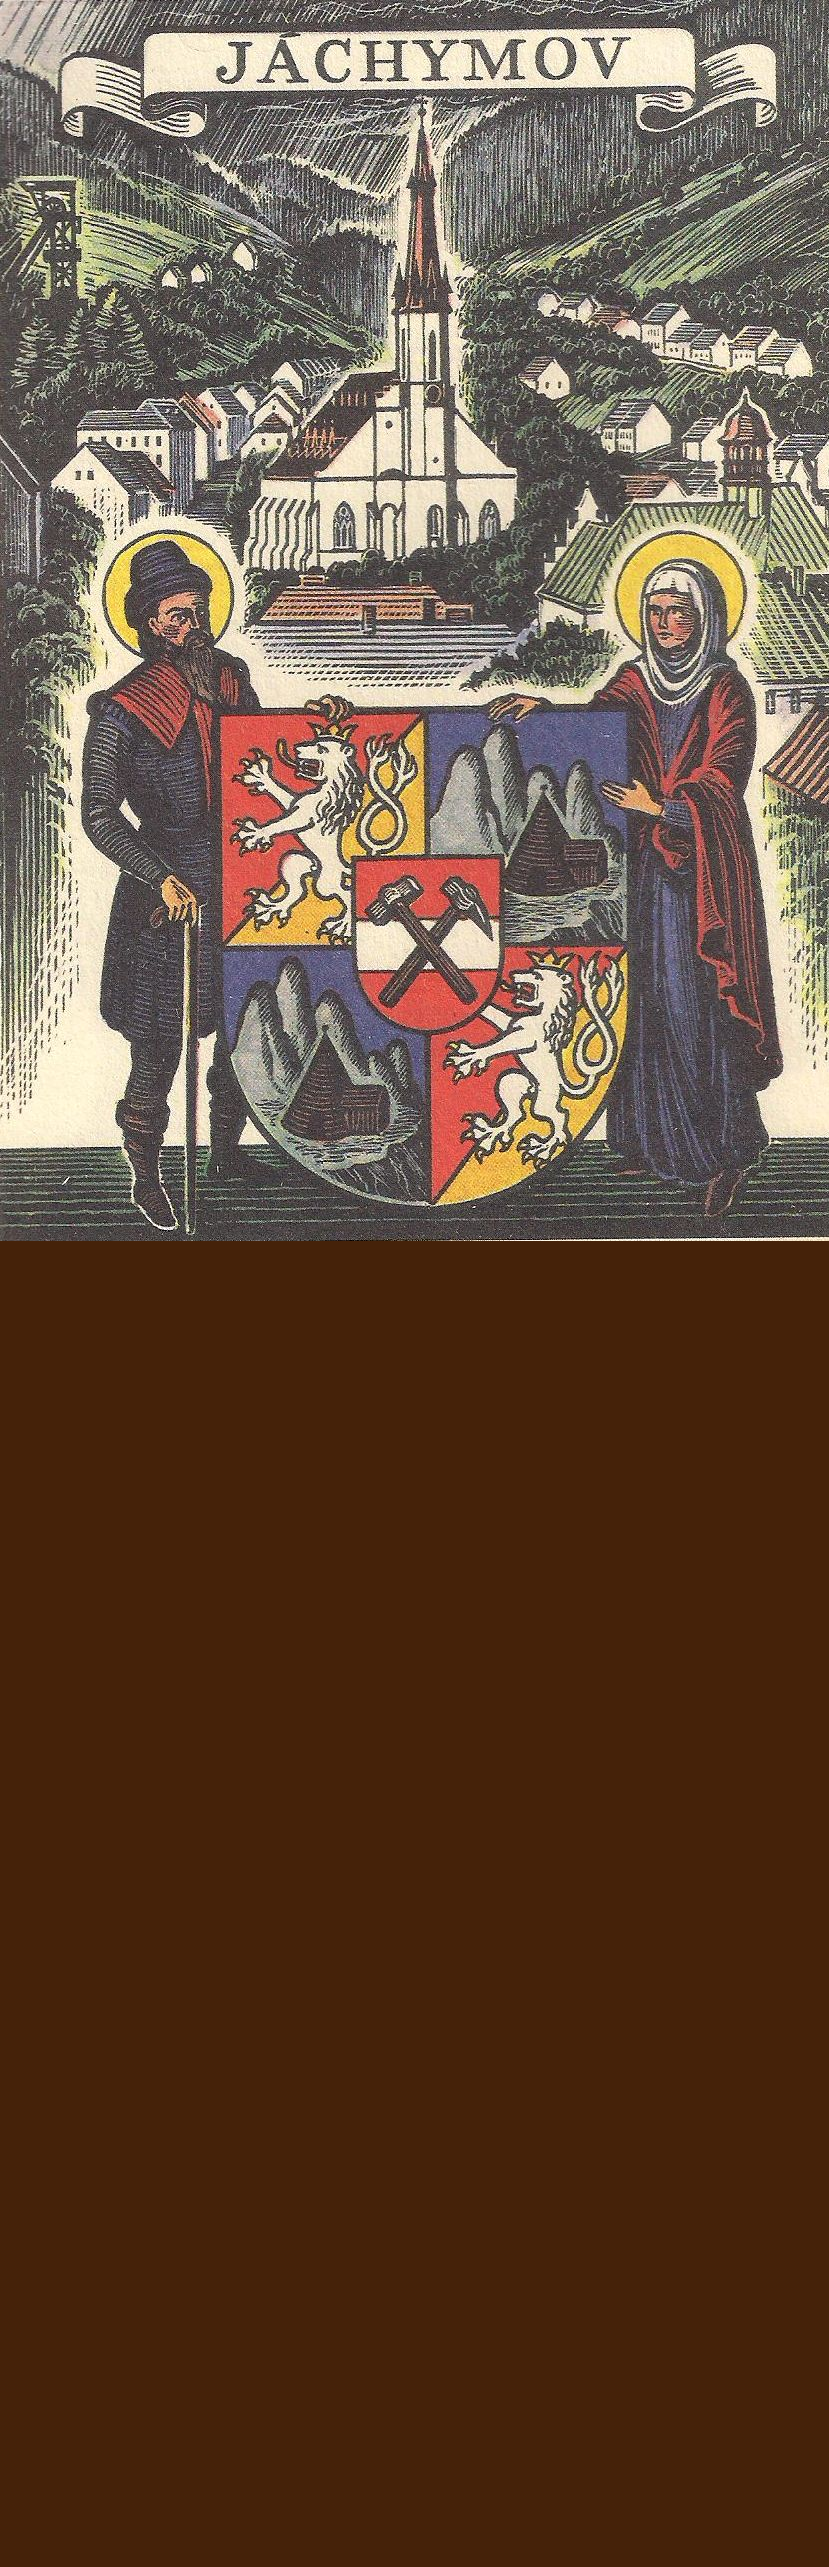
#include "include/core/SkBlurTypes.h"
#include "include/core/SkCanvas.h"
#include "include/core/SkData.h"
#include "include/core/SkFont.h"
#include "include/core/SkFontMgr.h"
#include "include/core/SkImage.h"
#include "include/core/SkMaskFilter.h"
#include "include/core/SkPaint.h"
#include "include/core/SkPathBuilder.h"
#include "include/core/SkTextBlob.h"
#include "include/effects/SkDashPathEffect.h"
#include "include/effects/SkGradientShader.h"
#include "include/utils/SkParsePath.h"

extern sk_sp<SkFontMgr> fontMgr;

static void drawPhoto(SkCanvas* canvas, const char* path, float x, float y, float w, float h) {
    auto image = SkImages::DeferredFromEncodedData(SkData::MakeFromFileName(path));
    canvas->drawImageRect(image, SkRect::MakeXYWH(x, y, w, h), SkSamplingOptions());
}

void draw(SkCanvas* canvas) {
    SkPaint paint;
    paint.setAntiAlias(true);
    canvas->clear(0xFF452209);
    drawPhoto(canvas, "assets/img1.png", 0, 0, 829, 1241);
}
